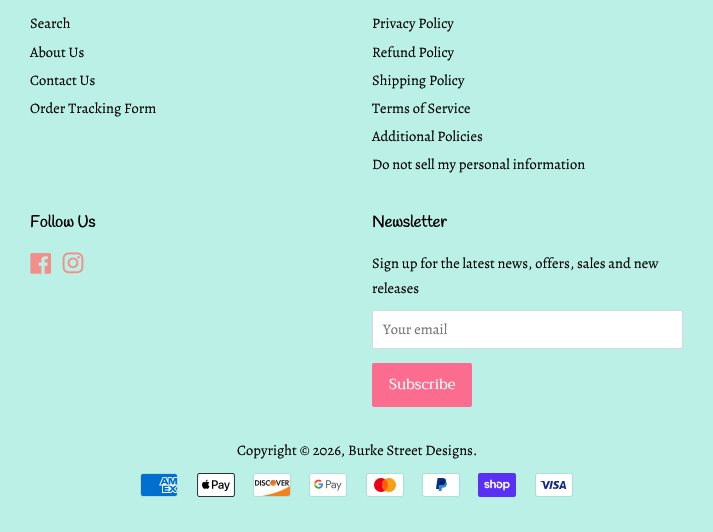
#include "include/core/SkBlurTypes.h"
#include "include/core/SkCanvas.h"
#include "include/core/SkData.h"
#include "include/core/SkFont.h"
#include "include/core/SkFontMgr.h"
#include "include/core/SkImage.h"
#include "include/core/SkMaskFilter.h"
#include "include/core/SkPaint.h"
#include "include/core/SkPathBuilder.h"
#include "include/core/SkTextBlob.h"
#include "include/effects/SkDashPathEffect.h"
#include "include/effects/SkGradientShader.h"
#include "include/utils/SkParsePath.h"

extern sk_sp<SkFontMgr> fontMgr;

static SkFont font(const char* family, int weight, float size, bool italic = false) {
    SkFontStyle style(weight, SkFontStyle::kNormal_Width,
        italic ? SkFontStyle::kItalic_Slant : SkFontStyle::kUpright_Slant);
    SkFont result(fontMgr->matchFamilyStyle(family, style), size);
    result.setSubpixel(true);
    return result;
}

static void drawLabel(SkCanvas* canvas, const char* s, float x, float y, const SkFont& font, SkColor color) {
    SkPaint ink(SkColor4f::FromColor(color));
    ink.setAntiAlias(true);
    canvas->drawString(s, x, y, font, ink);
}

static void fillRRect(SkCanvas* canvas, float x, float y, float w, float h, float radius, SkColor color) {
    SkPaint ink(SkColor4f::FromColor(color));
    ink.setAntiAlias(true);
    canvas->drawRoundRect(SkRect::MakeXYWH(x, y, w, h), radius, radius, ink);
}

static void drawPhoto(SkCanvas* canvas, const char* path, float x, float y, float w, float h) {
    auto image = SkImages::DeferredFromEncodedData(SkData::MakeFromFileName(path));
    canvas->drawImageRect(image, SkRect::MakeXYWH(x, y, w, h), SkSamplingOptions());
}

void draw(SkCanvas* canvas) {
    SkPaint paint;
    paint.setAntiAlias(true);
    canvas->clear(0xFFBAF0E5);
    SkFont font1 = font("Alegreya", 400, 14.5f);
    drawLabel(canvas, "Search", 30, 28, font1, 0xFF000000);
    drawLabel(canvas, "About Us", 30, 57, font1, 0xFF000000);
    drawLabel(canvas, "Contact Us", 30, 85, font1, 0xFF000000);
    drawLabel(canvas, "Order Tracking Form", 30, 113, font1, 0xFF000000);
    drawLabel(canvas, "Privacy Policy", 372, 28, font1, 0xFF000000);
    drawLabel(canvas, "Refund Policy", 372, 57, font1, 0xFF000000);
    drawLabel(canvas, "Shipping Policy", 372, 85, font1, 0xFF000000);
    drawLabel(canvas, "Terms of Service", 372, 113, font1, 0xFF000000);
    drawLabel(canvas, "Additional Policies", 372, 141, font1, 0xFF000000);
    drawLabel(canvas, "Do not sell my personal information", 372, 169, font1, 0xFF000000);
    SkFont font2 = font("Handlee", 700, 16);
    drawLabel(canvas, "Follow Us", 30, 227, font2, 0xFF000000);
    drawPhoto(canvas, "assets/img1.png", 30, 253, 21, 21);
    drawPhoto(canvas, "assets/img2.png", 62, 252, 22, 22);
    drawLabel(canvas, "Newsletter", 372, 227, font2, 0xFF000000);
    drawLabel(canvas, "Sign up for the latest news, offers, sales and new", 372, 268, font1, 0xFF000000);
    drawLabel(canvas, "releases", 372, 293, font1, 0xFF000000);
    fillRRect(canvas, 372, 310, 311, 39, 2, 0xFFFFFFFF);
    paint.setStroke(true);
    paint.setStrokeWidth(1);
    paint.setColor(0x26000000);
    canvas->drawRoundRect(SkRect::MakeXYWH(372.5f, 310.5f, 310, 38), 1.5f, 1.5f, paint);
    drawLabel(canvas, "Your email", 383, 334, font1, 0xFF757575);
    fillRRect(canvas, 372, 363, 100, 44, 2, 0xFFFB6C8F);
    SkFont font3 = font("Trirong", 400, 14.5f);
    drawLabel(canvas, "Subscribe", 389, 389, font3, 0xFFFFFFFF);
    drawLabel(canvas, "Copyright © 2026, Burke Street Designs.", 237, 455, font1, 0xFF000000);
    drawPhoto(canvas, "assets/img3.png", 140, 473, 38, 24);
    drawPhoto(canvas, "assets/img4.png", 197, 473, 38, 24);
    drawPhoto(canvas, "assets/img5.png", 253, 473, 38, 24);
    drawPhoto(canvas, "assets/img6.png", 309, 473, 38, 24);
    drawPhoto(canvas, "assets/img7.png", 366, 473, 38, 24);
    drawPhoto(canvas, "assets/img8.png", 422, 473, 38, 24);
    drawPhoto(canvas, "assets/img9.png", 478, 473, 38, 24);
    drawPhoto(canvas, "assets/img10.png", 535, 473, 38, 24);
}
